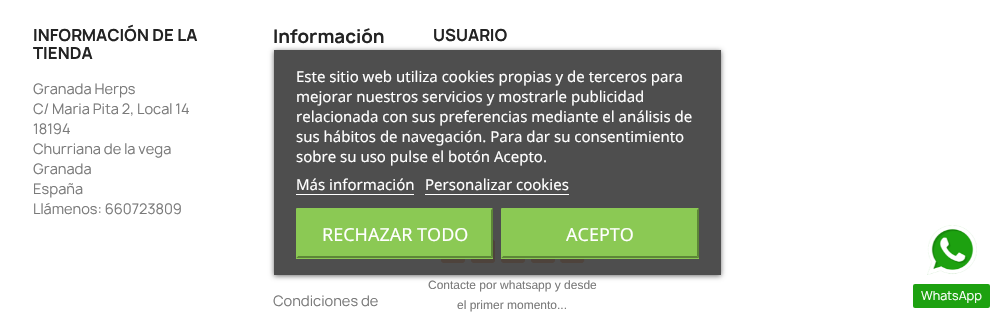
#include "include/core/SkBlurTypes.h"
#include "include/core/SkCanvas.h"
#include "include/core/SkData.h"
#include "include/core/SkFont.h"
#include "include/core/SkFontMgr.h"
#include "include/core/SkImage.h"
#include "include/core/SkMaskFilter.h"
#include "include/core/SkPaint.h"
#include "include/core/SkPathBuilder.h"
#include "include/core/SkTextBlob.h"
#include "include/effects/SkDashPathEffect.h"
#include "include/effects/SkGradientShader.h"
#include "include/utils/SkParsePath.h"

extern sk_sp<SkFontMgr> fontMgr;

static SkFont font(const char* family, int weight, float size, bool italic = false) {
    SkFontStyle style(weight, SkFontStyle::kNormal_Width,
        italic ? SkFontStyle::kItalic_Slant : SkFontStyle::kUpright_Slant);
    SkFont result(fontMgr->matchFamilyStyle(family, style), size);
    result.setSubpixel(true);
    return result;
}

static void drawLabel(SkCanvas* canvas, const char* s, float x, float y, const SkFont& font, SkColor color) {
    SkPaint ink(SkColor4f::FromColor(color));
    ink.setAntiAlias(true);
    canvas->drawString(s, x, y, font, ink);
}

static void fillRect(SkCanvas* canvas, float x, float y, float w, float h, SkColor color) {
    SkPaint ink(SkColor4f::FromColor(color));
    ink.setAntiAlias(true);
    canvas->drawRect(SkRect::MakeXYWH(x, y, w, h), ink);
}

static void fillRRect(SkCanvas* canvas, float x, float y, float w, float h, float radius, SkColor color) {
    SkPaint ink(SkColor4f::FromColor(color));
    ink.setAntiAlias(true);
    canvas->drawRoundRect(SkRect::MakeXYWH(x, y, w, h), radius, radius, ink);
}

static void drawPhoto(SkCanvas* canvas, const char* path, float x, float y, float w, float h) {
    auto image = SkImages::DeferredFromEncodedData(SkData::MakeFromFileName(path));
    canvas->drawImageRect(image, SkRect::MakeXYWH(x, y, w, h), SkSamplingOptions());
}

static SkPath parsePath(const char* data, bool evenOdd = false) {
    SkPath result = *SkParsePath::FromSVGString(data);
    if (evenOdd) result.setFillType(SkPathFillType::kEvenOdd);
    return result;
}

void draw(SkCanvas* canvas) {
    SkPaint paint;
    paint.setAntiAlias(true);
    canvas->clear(0xFFFFFFFF);
    SkFont font1 = font("Manrope", 700, 16);
    drawLabel(canvas, "INFORMACIÓN DE LA", 33, 41, font1, 0xFF232323);
    drawLabel(canvas, "TIENDA", 33, 59, font1, 0xFF232323);
    SkFont font2 = font("Manrope", 400, 14);
    drawLabel(canvas, "Granada Herps", 33, 94, font2, 0xFF7A7A7A);
    drawLabel(canvas, "C/ Maria Pita 2, Local 14", 33, 114, font2, 0xFF7A7A7A);
    drawLabel(canvas, "18194", 33, 134, font2, 0xFF7A7A7A);
    drawLabel(canvas, "Churriana de la vega", 33, 154, font2, 0xFF7A7A7A);
    drawLabel(canvas, "Granada", 33, 174, font2, 0xFF7A7A7A);
    drawLabel(canvas, "España", 33, 194, font2, 0xFF7A7A7A);
    drawLabel(canvas, "Llámenos: 660723809", 33, 214, font2, 0xFF7A7A7A);
    SkFont font3 = font("Manrope", 700, 18);
    drawLabel(canvas, "Información", 273, 43, font3, 0xFF232323);
    drawLabel(canvas, "Condiciones de", 273, 306, font2, 0xFF7A7A7A);
    drawLabel(canvas, "USUARIO", 433, 41, font1, 0xFF232323);
    drawPhoto(canvas, "assets/img1.png", 441, 239, 144, 24);
    canvas->save();
    canvas->clipPath(parsePath("M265 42H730V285H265ZM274 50H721V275H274Z", true), true);
    paint.setColor(0xFF707070);
    paint.setMaskFilter(SkMaskFilter::MakeBlur(kNormal_SkBlurStyle, 2.5f));
    canvas->drawRect(SkRect::MakeXYWH(274, 51, 447, 225), paint);
    paint.setMaskFilter(nullptr);
    canvas->restore();
    fillRect(canvas, 274, 50, 447, 225, 0xE63B3B3B);
    SkFont font4 = font("Noto Sans", 400, 15);
    drawLabel(canvas, "Este sitio web utiliza cookies propias y de terceros para", 296, 82, font4, 0xFFFFFFFF);
    drawLabel(canvas, "mejorar nuestros servicios y mostrarle publicidad", 296, 102, font4, 0xFFFFFFFF);
    drawLabel(canvas, "relacionada con sus preferencias mediante el análisis de", 296, 122, font4, 0xFFFFFFFF);
    drawLabel(canvas, "sus hábitos de navegación. Para dar su consentimiento", 296, 142, font4, 0xFFFFFFFF);
    drawLabel(canvas, "sobre su uso pulse el botón Acepto.", 296, 162, font4, 0xFFFFFFFF);
    drawLabel(canvas, "Más información", 296, 190, font4, 0xFFFFFFFF);
    fillRect(canvas, 296, 194, 118, 1, 0xFFFFFFFF);
    drawLabel(canvas, "Personalizar cookies", 425, 190, font4, 0xFFFFFFFF);
    fillRect(canvas, 425, 194, 144, 1, 0xFFFFFFFF);
    fillRect(canvas, 296, 209, 197, 50, 0xFF8BC954);
    paint.setColor(0xFF8BC954);
    canvas->drawPath(parsePath("M296 208H493L491 210H298Z"), paint);
    paint.setColor(0xFF5D8638);
    canvas->drawPath(parsePath("M493 208V258L491 256V210Z"), paint);
    canvas->drawPath(parsePath("M493 258H296L298 256H491Z"), paint);
    paint.setColor(0xFF8BC954);
    canvas->drawPath(parsePath("M296 258V208L298 210V256Z"), paint);
    SkFont font5 = font("Noto Sans", 400, 18);
    drawLabel(canvas, "RECHAZAR TODO", 322, 241, font5, 0xFFFFFFFF);
    fillRect(canvas, 501, 209, 198, 50, 0xFF8BC954);
    canvas->drawPath(parsePath("M501 208H699L697 210H503Z"), paint);
    paint.setColor(0xFF5D8638);
    canvas->drawPath(parsePath("M699 208V258L697 256V210Z"), paint);
    canvas->drawPath(parsePath("M699 258H501L503 256H697Z"), paint);
    paint.setColor(0xFF8BC954);
    canvas->drawPath(parsePath("M501 258V208L503 210V256Z"), paint);
    drawLabel(canvas, "ACEPTO", 566, 241, font5, 0xFFFFFFFF);
    SkFont font6 = font("Liberation Sans", 400, 12);
    drawLabel(canvas, "Contacte por whatsapp y desde", 428, 289, font6, 0xFF7A7A7A);
    drawLabel(canvas, "el primer momento...", 457, 309, font6, 0xFF7A7A7A);
    drawPhoto(canvas, "assets/img2.png", 927, 225, 50, 50);
    fillRRect(canvas, 913, 284, 77, 24, 2, 0xFF1DA110);
    SkFont font7 = font("Manrope", 400, 12);
    drawLabel(canvas, "WhatsApp", 921, 300, font7, 0xFFFFFFFF);
}
